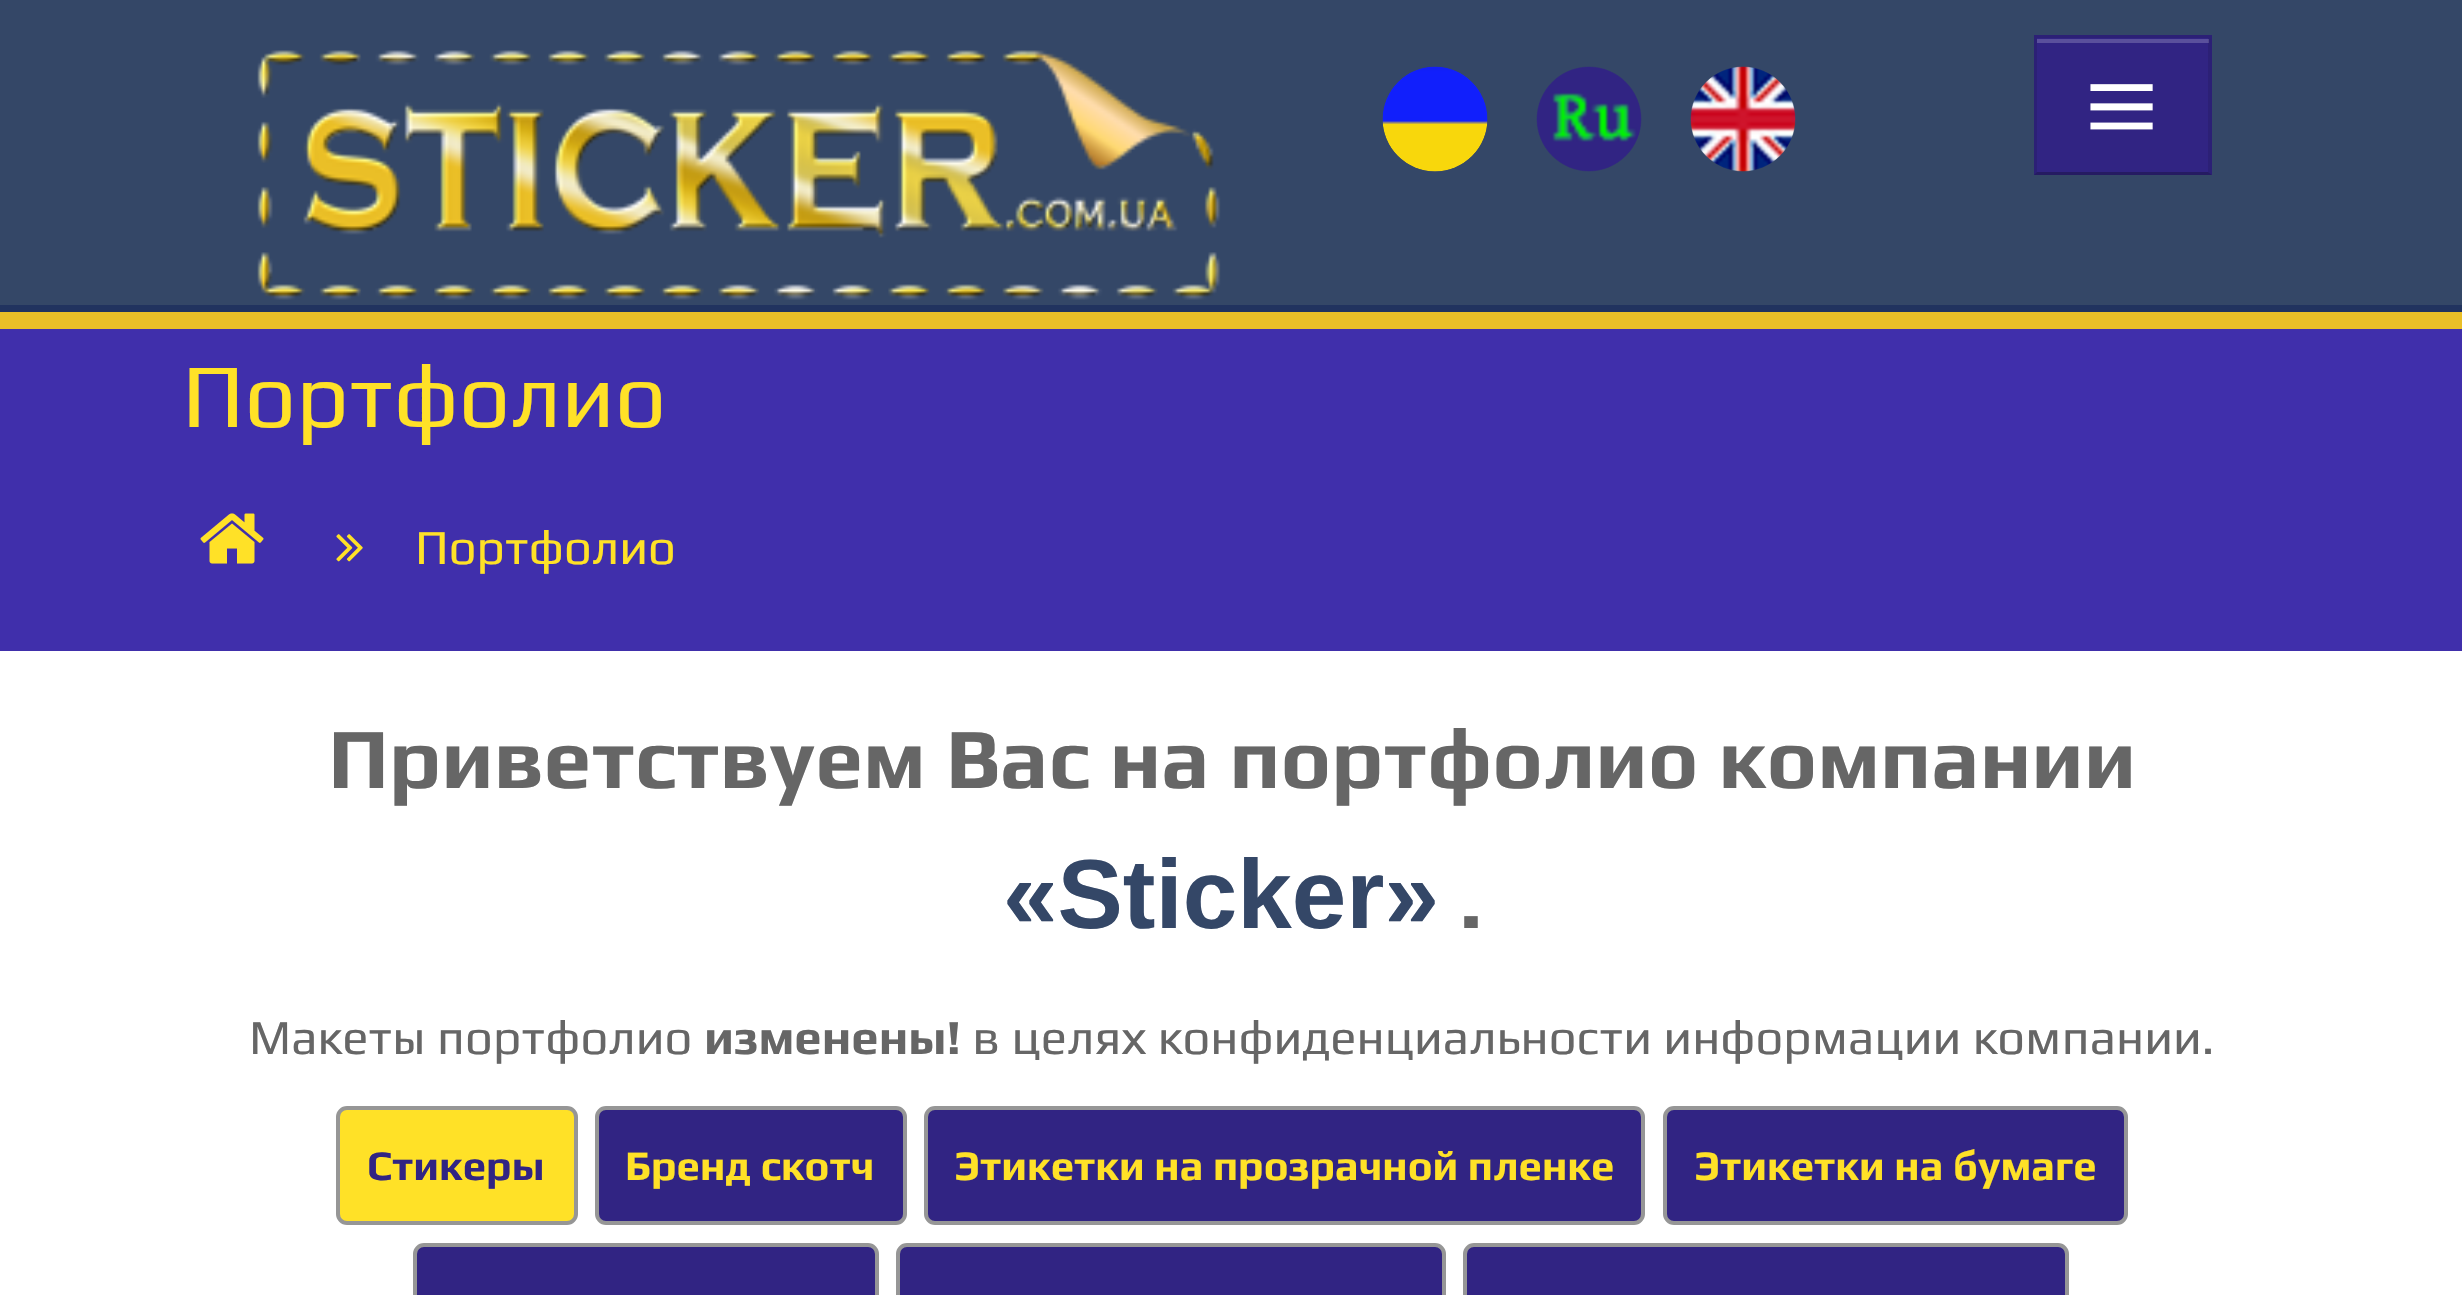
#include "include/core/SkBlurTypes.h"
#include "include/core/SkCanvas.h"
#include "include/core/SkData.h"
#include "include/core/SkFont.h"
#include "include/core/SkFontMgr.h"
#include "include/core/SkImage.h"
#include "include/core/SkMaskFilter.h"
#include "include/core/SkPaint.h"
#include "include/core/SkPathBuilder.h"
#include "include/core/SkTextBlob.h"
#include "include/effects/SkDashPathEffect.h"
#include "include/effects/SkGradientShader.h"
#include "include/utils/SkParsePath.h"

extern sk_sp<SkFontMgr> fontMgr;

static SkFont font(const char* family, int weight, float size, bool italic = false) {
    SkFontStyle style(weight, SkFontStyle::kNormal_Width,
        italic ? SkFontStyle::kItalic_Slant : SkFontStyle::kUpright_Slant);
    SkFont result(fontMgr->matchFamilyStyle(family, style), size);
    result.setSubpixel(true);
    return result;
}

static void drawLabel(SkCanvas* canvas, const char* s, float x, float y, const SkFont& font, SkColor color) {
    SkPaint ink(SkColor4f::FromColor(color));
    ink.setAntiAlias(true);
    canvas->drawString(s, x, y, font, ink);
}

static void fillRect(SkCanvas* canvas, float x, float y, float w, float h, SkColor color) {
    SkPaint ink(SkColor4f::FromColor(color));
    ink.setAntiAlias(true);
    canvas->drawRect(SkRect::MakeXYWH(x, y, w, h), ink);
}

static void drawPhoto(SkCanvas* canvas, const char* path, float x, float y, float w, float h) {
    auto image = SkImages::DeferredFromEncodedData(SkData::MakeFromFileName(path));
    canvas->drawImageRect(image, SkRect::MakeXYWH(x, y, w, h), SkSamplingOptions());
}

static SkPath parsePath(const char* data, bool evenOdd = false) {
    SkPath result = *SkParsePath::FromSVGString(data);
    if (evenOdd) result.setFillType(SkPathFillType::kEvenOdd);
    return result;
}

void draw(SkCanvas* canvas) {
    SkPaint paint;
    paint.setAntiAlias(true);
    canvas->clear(0xFFFFFFFF);
    fillRect(canvas, 0, 0, 2462, 305, 0xFF344767);
    fillRect(canvas, 0, 312, 2462, 17, 0xFFEABF27);
    drawPhoto(canvas, "assets/img1.png", 257, 50, 964, 250);
    drawPhoto(canvas, "assets/img2.png", 1382, 66, 106, 106);
    drawPhoto(canvas, "assets/img3.png", 1536, 66, 106, 106);
    drawPhoto(canvas, "assets/img4.png", 1690, 66, 106, 106);
    fillRect(canvas, 2034, 35, 178, 140, 0xFF312483);
    fillRect(canvas, 2037, 39, 172, 4, 0xFF5A509C);
    paint.setColor(0xFF2C2076);
    canvas->drawPath(parsePath("M2034 35H2212L2208 38H2037Z"), paint);
    paint.setColor(0x1A000000);
    canvas->drawPath(parsePath("M2212 35V175L2208 172V38Z"), paint);
    paint.setColor(0x40000000);
    canvas->drawPath(parsePath("M2212 175H2034L2037 172H2208Z"), paint);
    paint.setColor(0x1A000000);
    canvas->drawPath(parsePath("M2034 175V35L2037 38V172Z"), paint);
    SkFont font1 = font("Liberation Serif", 400, 133);
    drawLabel(canvas, "≡", 2084, 151, font1, 0xFFFFFFFF);
    fillRect(canvas, 0, 329, 2462, 322, 0xFF402FAB);
    fillRect(canvas, 0, 305, 2462, 7, 0xFF21335F);
    SkFont font2 = font("Play", 400, 91);
    drawLabel(canvas, "Портфолио", 182, 427, font2, 0xFFFFE127);
    drawPhoto(canvas, "assets/img5.png", 200, 513, 64, 51);
    drawPhoto(canvas, "assets/img6.png", 336, 534, 27, 28);
    SkFont font3 = font("Play", 400, 49);
    drawLabel(canvas, "Портфолио", 415, 564, font3, 0xFFFFE127);
    SkFont font4 = font("Play", 700, 85.75f);
    drawLabel(canvas, "Приветствуем Вас на портфолио компании", 328, 788, font4, 0xFF666666);
    SkFont font5 = font("Liberation Sans", 700, 98);
    drawLabel(canvas, "«Sticker»", 1003, 928, font5, 0xFF344767);
    drawLabel(canvas, ".", 1460, 928, font4, 0xFF666666);
    drawLabel(canvas, "Макеты портфолио", 249, 1054, font3, 0xFF666666);
    SkFont font6 = font("Play", 700, 49);
    drawLabel(canvas, "изменены!", 704, 1054, font6, 0xFF666666);
    drawLabel(canvas, "в целях конфиденциальности информации компании.", 972, 1054, font3, 0xFF666666);
    paint.setColor(0xFFFFE127);
    canvas->drawRoundRect(SkRect::MakeXYWH(338, 1108, 238, 115), 9, 9, paint);
    paint.setStroke(true);
    paint.setStrokeWidth(4);
    paint.setColor(0xFF969696);
    canvas->drawRoundRect(SkRect::MakeXYWH(338, 1108, 238, 115), 9, 9, paint);
    SkFont font7 = font("Play", 700, 42);
    drawLabel(canvas, "Стикеры", 367, 1180, font7, 0xFF312483);
    paint.setStroke(false);
    paint.setColor(0xFF312483);
    canvas->drawRoundRect(SkRect::MakeXYWH(597, 1108, 308, 115), 9, 9, paint);
    paint.setStroke(true);
    paint.setColor(0xFF969696);
    canvas->drawRoundRect(SkRect::MakeXYWH(597, 1108, 308, 115), 9, 9, paint);
    drawLabel(canvas, "Бренд скотч", 625, 1180, font7, 0xFFFFE127);
    paint.setStroke(false);
    paint.setColor(0xFF312483);
    canvas->drawRoundRect(SkRect::MakeXYWH(926, 1108, 717, 115), 9, 9, paint);
    paint.setStroke(true);
    paint.setColor(0xFF969696);
    canvas->drawRoundRect(SkRect::MakeXYWH(926, 1108, 717, 115), 9, 9, paint);
    drawLabel(canvas, "Этикетки на прозрачной пленке", 955, 1180, font7, 0xFFFFE127);
    paint.setStroke(false);
    paint.setColor(0xFF312483);
    canvas->drawRoundRect(SkRect::MakeXYWH(1665, 1108, 461, 115), 9, 9, paint);
    paint.setStroke(true);
    paint.setColor(0xFF969696);
    canvas->drawRoundRect(SkRect::MakeXYWH(1665, 1108, 461, 115), 9, 9, paint);
    drawLabel(canvas, "Этикетки на бумаге", 1695, 1180, font7, 0xFFFFE127);
    paint.setStroke(false);
    paint.setColor(0xFF312483);
    canvas->drawRoundRect(SkRect::MakeXYWH(415, 1245, 462, 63), 9, 9, paint);
    paint.setStroke(true);
    paint.setColor(0xFF969696);
    canvas->drawRoundRect(SkRect::MakeXYWH(415, 1245, 462, 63), 9, 9, paint);
    paint.setStroke(false);
    paint.setColor(0xFF312483);
    canvas->drawRoundRect(SkRect::MakeXYWH(898, 1245, 546, 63), 9, 9, paint);
    paint.setStroke(true);
    paint.setColor(0xFF969696);
    canvas->drawRoundRect(SkRect::MakeXYWH(898, 1245, 546, 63), 9, 9, paint);
    paint.setStroke(false);
    paint.setColor(0xFF312483);
    canvas->drawRoundRect(SkRect::MakeXYWH(1465, 1245, 602, 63), 9, 9, paint);
    paint.setStroke(true);
    paint.setColor(0xFF969696);
    canvas->drawRoundRect(SkRect::MakeXYWH(1465, 1245, 602, 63), 9, 9, paint);
}
